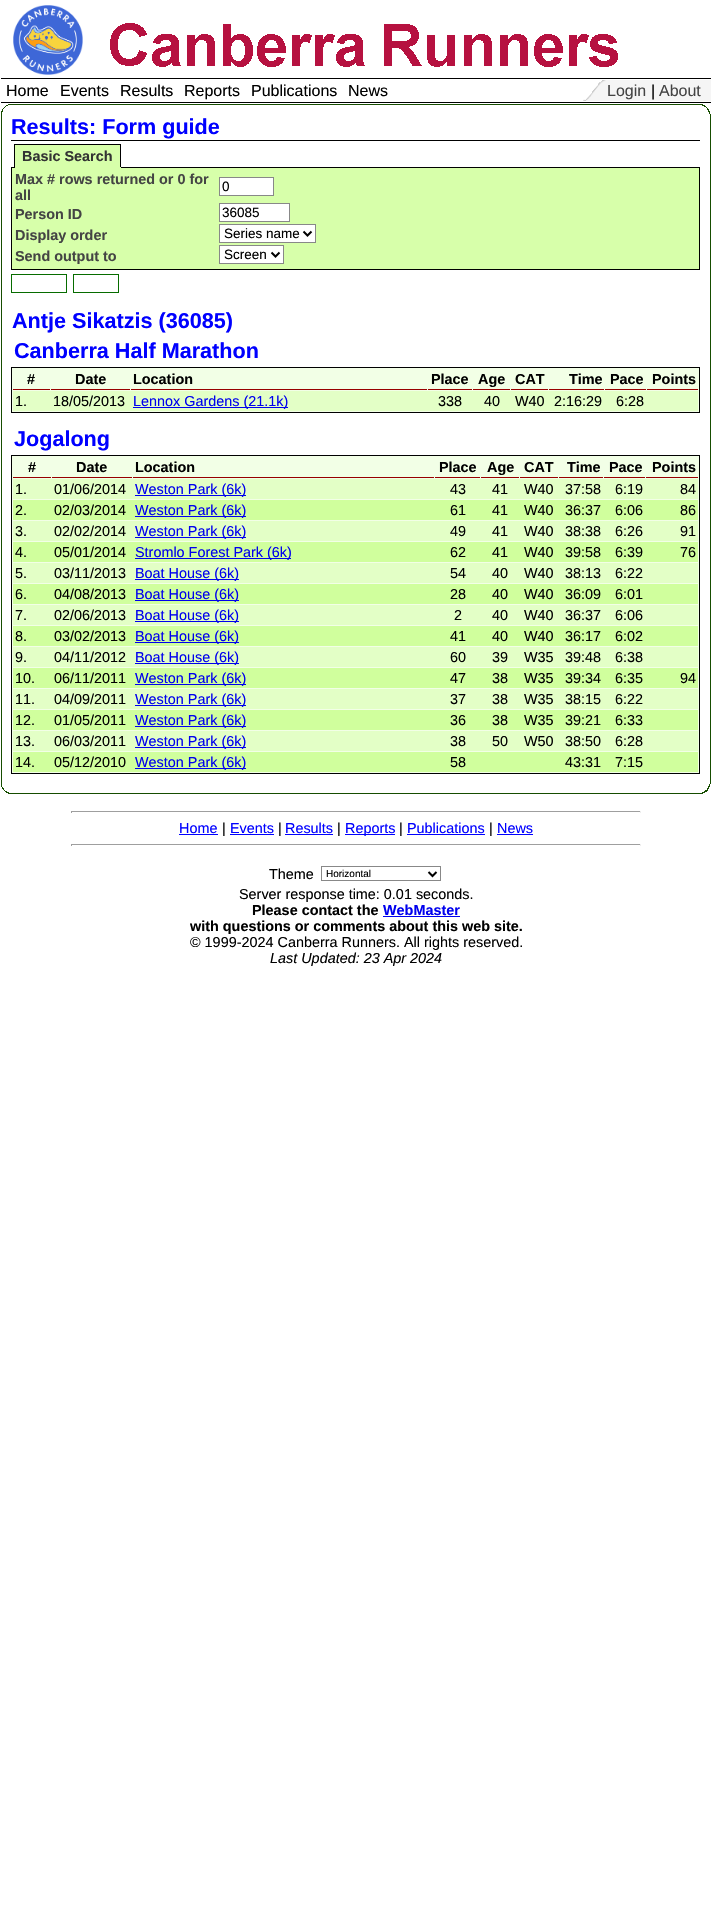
#include "include/core/SkBlurTypes.h"
#include "include/core/SkCanvas.h"
#include "include/core/SkData.h"
#include "include/core/SkFont.h"
#include "include/core/SkFontMgr.h"
#include "include/core/SkImage.h"
#include "include/core/SkMaskFilter.h"
#include "include/core/SkPaint.h"
#include "include/core/SkPathBuilder.h"
#include "include/core/SkTextBlob.h"
#include "include/effects/SkDashPathEffect.h"
#include "include/effects/SkGradientShader.h"
#include "include/utils/SkParsePath.h"

extern sk_sp<SkFontMgr> fontMgr;

static SkFont font(const char* family, int weight, float size, bool italic = false) {
    SkFontStyle style(weight, SkFontStyle::kNormal_Width,
        italic ? SkFontStyle::kItalic_Slant : SkFontStyle::kUpright_Slant);
    SkFont result(fontMgr->matchFamilyStyle(family, style), size);
    result.setSubpixel(true);
    return result;
}

static void drawLabel(SkCanvas* canvas, const char* s, float x, float y, const SkFont& font, SkColor color) {
    SkPaint ink(SkColor4f::FromColor(color));
    ink.setAntiAlias(true);
    canvas->drawString(s, x, y, font, ink);
}

static void fillRect(SkCanvas* canvas, float x, float y, float w, float h, SkColor color) {
    SkPaint ink(SkColor4f::FromColor(color));
    ink.setAntiAlias(true);
    canvas->drawRect(SkRect::MakeXYWH(x, y, w, h), ink);
}

static void drawPhoto(SkCanvas* canvas, const char* path, float x, float y, float w, float h) {
    auto image = SkImages::DeferredFromEncodedData(SkData::MakeFromFileName(path));
    canvas->drawImageRect(image, SkRect::MakeXYWH(x, y, w, h), SkSamplingOptions());
}

static SkPath parsePath(const char* data, bool evenOdd = false) {
    SkPath result = *SkParsePath::FromSVGString(data);
    if (evenOdd) result.setFillType(SkPathFillType::kEvenOdd);
    return result;
}

void draw(SkCanvas* canvas) {
    SkPaint paint;
    paint.setAntiAlias(true);
    canvas->clear(0xFFFFFFFF);
    drawPhoto(canvas, "assets/img1.png", 13, 5, 70, 70);
    drawPhoto(canvas, "assets/img2.png", 110, 23, 508, 44);
    fillRect(canvas, 1, 78, 710, 1, 0xFF000000);
    fillRect(canvas, 1, 102, 710, 1, 0xFF000000);
    SkFont font1 = font("Liberation Sans", 400, 16);
    drawLabel(canvas, "Home", 6, 96, font1, 0xFF000000);
    drawLabel(canvas, "Events", 60, 96, font1, 0xFF000000);
    drawLabel(canvas, "Results", 120, 96, font1, 0xFF000000);
    drawLabel(canvas, "Reports", 184, 96, font1, 0xFF000000);
    drawLabel(canvas, "Publications", 251, 96, font1, 0xFF000000);
    drawLabel(canvas, "News", 348, 96, font1, 0xFF000000);
    drawPhoto(canvas, "assets/img3.png", 583, 80, 24, 21);
    fillRect(canvas, 607, 80, 104, 21, 0xFFF5F5F5);
    drawLabel(canvas, "Login", 607, 96, font1, 0xFF444444);
    drawLabel(canvas, "|", 651, 96, font1, 0xFF000000);
    drawLabel(canvas, "About", 659, 96, font1, 0xFF444444);
    drawPhoto(canvas, "assets/img4.png", 1, 104, 10, 10);
    fillRect(canvas, 11, 104, 689, 1, 0xFF164D00);
    drawPhoto(canvas, "assets/img5.png", 700, 104, 10, 10);
    fillRect(canvas, 1, 114, 1, 670, 0xFF164D00);
    fillRect(canvas, 11, 140, 689, 1, 0xFF000000);
    SkFont font2 = font("Liberation Sans", 700, 21.6f);
    drawLabel(canvas, "Results: Form guide", 11, 134, font2, 0xFF0000FF);
    fillRect(canvas, 11, 167, 689, 1, 0xFF000000);
    fillRect(canvas, 15, 145, 105, 22, 0xFFD7FFAA);
    SkFont font3 = font("Liberation Sans", 700, 14.4f);
    drawLabel(canvas, "Basic Search", 22, 161, font3, 0xFF333333);
    fillRect(canvas, 14, 144, 107, 1, 0xFF000000);
    fillRect(canvas, 120, 144, 1, 24, 0xFF000000);
    fillRect(canvas, 14, 167, 107, 1, 0xFFD7FFAA);
    fillRect(canvas, 14, 144, 1, 24, 0xFF000000);
    fillRect(canvas, 12, 168, 687, 101, 0xFFD7FFAA);
    fillRect(canvas, 699, 168, 1, 102, 0xFF000000);
    fillRect(canvas, 11, 269, 689, 1, 0xFF000000);
    fillRect(canvas, 11, 168, 1, 102, 0xFF000000);
    drawLabel(canvas, "Max # rows returned or 0 for", 15, 184, font3, 0xFF444444);
    drawLabel(canvas, "all", 15, 200, font3, 0xFF444444);
    paint.setColor(0xFFFFFFFF);
    canvas->drawRect(SkRect::MakeXYWH(219.5f, 177.5f, 54, 18), paint);
    paint.setStroke(true);
    paint.setStrokeWidth(1);
    paint.setColor(0xFF888888);
    canvas->drawRect(SkRect::MakeXYWH(219.5f, 177.5f, 54, 18), paint);
    SkFont font4 = font("Liberation Sans", 400, 13.5f);
    drawLabel(canvas, "0", 222, 191, font4, 0xFF000000);
    drawLabel(canvas, "Person ID", 15, 219, font3, 0xFF444444);
    paint.setStroke(false);
    paint.setColor(0xFFFFFFFF);
    canvas->drawRect(SkRect::MakeXYWH(219.5f, 203.5f, 70, 18), paint);
    paint.setStroke(true);
    paint.setColor(0xFF888888);
    canvas->drawRect(SkRect::MakeXYWH(219.5f, 203.5f, 70, 18), paint);
    drawLabel(canvas, "36085", 222, 217, font4, 0xFF000000);
    drawLabel(canvas, "Display order", 15, 240, font3, 0xFF444444);
    paint.setStroke(false);
    paint.setColor(0xFFFFFFFF);
    canvas->drawRect(SkRect::MakeXYWH(219.5f, 224.5f, 96, 18), paint);
    paint.setStroke(true);
    paint.setColor(0xFF888888);
    canvas->drawRect(SkRect::MakeXYWH(219.5f, 224.5f, 96, 18), paint);
    paint.setStrokeWidth(2);
    paint.setColor(0xFF000000);
    canvas->drawPath(parsePath("M303.5 231.5L307.5 235.5L311.5 231.5"), paint);
    drawLabel(canvas, "Series name", 224, 238, font4, 0xFF000000);
    drawLabel(canvas, "Send output to", 15, 261, font3, 0xFF444444);
    paint.setStroke(false);
    paint.setColor(0xFFFFFFFF);
    canvas->drawRect(SkRect::MakeXYWH(219.5f, 245.5f, 64, 18), paint);
    paint.setStroke(true);
    paint.setStrokeWidth(1);
    paint.setColor(0xFF888888);
    canvas->drawRect(SkRect::MakeXYWH(219.5f, 245.5f, 64, 18), paint);
    paint.setStrokeWidth(2);
    paint.setColor(0xFF000000);
    canvas->drawPath(parsePath("M271.5 252.5L275.5 256.5L279.5 252.5"), paint);
    drawLabel(canvas, "Screen", 224, 259, font4, 0xFF000000);
    paint.setStrokeWidth(1);
    paint.setColor(0xFF076C00);
    canvas->drawRect(SkRect::MakeXYWH(11.5f, 274.5f, 55, 18), paint);
    canvas->drawRect(SkRect::MakeXYWH(73.5f, 274.5f, 45, 18), paint);
    drawLabel(canvas, "Antje Sikatzis (36085)", 12, 328, font2, 0xFF0000FF);
    drawLabel(canvas, "Canberra Half Marathon", 14, 358, font2, 0xFF0000FF);
    paint.setStroke(false);
    paint.setColor(0xFFF2FFE6);
    canvas->drawRect(SkRect::MakeXYWH(11.5f, 367.5f, 688, 45), paint);
    paint.setStroke(true);
    paint.setColor(0xFF000000);
    canvas->drawRect(SkRect::MakeXYWH(11.5f, 367.5f, 688, 45), paint);
    fillRect(canvas, 13, 389, 37, 1, 0xFF980000);
    drawLabel(canvas, "#", 27, 384, font3, 0xFF000000);
    fillRect(canvas, 51, 389, 79, 1, 0xFF980000);
    drawLabel(canvas, "Date", 75, 384, font3, 0xFF000000);
    fillRect(canvas, 131, 389, 296, 1, 0xFF980000);
    drawLabel(canvas, "Location", 133, 384, font3, 0xFF000000);
    fillRect(canvas, 428, 389, 44, 1, 0xFF980000);
    drawLabel(canvas, "Place", 431, 384, font3, 0xFF000000);
    fillRect(canvas, 473, 389, 37, 1, 0xFF980000);
    drawLabel(canvas, "Age", 478, 384, font3, 0xFF000000);
    fillRect(canvas, 511, 389, 37, 1, 0xFF980000);
    drawLabel(canvas, "CAT", 515, 384, font3, 0xFF000000);
    fillRect(canvas, 549, 389, 55, 1, 0xFF980000);
    drawLabel(canvas, "Time", 569, 384, font3, 0xFF000000);
    fillRect(canvas, 605, 389, 41, 1, 0xFF980000);
    drawLabel(canvas, "Pace", 610, 384, font3, 0xFF000000);
    fillRect(canvas, 647, 389, 51, 1, 0xFF980000);
    drawLabel(canvas, "Points", 652, 384, font3, 0xFF000000);
    fillRect(canvas, 13, 391, 685, 20, 0xFFE3FFC6);
    SkFont font5 = font("Liberation Sans", 400, 14.4f);
    drawLabel(canvas, "1.", 15, 406, font5, 0xFF000000);
    drawLabel(canvas, "18/05/2013", 53, 406, font5, 0xFF000000);
    fillRect(canvas, 133, 407, 155, 1, 0xFF0000EE);
    drawLabel(canvas, "Lennox Gardens (21.1k)", 133, 406, font5, 0xFF0000EE);
    drawLabel(canvas, "338", 438, 406, font5, 0xFF000000);
    drawLabel(canvas, "40", 484, 406, font5, 0xFF000000);
    drawLabel(canvas, "W40", 515, 406, font5, 0xFF000000);
    drawLabel(canvas, "2:16:29", 554, 406, font5, 0xFF000000);
    drawLabel(canvas, "6:28", 616, 406, font5, 0xFF000000);
    drawLabel(canvas, "Jogalong", 14, 446, font2, 0xFF0000FF);
    paint.setStroke(false);
    paint.setColor(0xFFF2FFE6);
    canvas->drawRect(SkRect::MakeXYWH(11.5f, 455.5f, 688, 318), paint);
    paint.setStroke(true);
    paint.setColor(0xFF000000);
    canvas->drawRect(SkRect::MakeXYWH(11.5f, 455.5f, 688, 318), paint);
    fillRect(canvas, 13, 477, 38, 1, 0xFF980000);
    drawLabel(canvas, "#", 28, 472, font3, 0xFF000000);
    fillRect(canvas, 52, 477, 80, 1, 0xFF980000);
    drawLabel(canvas, "Date", 76, 472, font3, 0xFF000000);
    fillRect(canvas, 133, 477, 301, 1, 0xFF980000);
    drawLabel(canvas, "Location", 135, 472, font3, 0xFF000000);
    fillRect(canvas, 435, 477, 45, 1, 0xFF980000);
    drawLabel(canvas, "Place", 439, 472, font3, 0xFF000000);
    fillRect(canvas, 481, 477, 38, 1, 0xFF980000);
    drawLabel(canvas, "Age", 487, 472, font3, 0xFF000000);
    fillRect(canvas, 520, 477, 38, 1, 0xFF980000);
    drawLabel(canvas, "CAT", 524, 472, font3, 0xFF000000);
    fillRect(canvas, 559, 477, 44, 1, 0xFF980000);
    drawLabel(canvas, "Time", 567, 472, font3, 0xFF000000);
    fillRect(canvas, 604, 477, 41, 1, 0xFF980000);
    drawLabel(canvas, "Pace", 609, 472, font3, 0xFF000000);
    fillRect(canvas, 646, 477, 52, 1, 0xFF980000);
    drawLabel(canvas, "Points", 652, 472, font3, 0xFF000000);
    fillRect(canvas, 13, 479, 685, 20, 0xFFE3FFC6);
    drawLabel(canvas, "1.", 15, 494, font5, 0xFF000000);
    drawLabel(canvas, "01/06/2014", 54, 494, font5, 0xFF000000);
    fillRect(canvas, 135, 495, 111, 1, 0xFF0000EE);
    drawLabel(canvas, "Weston Park (6k)", 135, 494, font5, 0xFF0000EE);
    drawLabel(canvas, "43", 450, 494, font5, 0xFF000000);
    drawLabel(canvas, "41", 492, 494, font5, 0xFF000000);
    drawLabel(canvas, "W40", 524, 494, font5, 0xFF000000);
    drawLabel(canvas, "37:58", 565, 494, font5, 0xFF000000);
    drawLabel(canvas, "6:19", 615, 494, font5, 0xFF000000);
    drawLabel(canvas, "84", 680, 494, font5, 0xFF000000);
    fillRect(canvas, 13, 500, 685, 20, 0xFFD0FF9D);
    drawLabel(canvas, "2.", 15, 515, font5, 0xFF000000);
    drawLabel(canvas, "02/03/2014", 54, 515, font5, 0xFF000000);
    fillRect(canvas, 135, 516, 111, 1, 0xFF0000EE);
    drawLabel(canvas, "Weston Park (6k)", 135, 515, font5, 0xFF0000EE);
    drawLabel(canvas, "61", 450, 515, font5, 0xFF000000);
    drawLabel(canvas, "41", 492, 515, font5, 0xFF000000);
    drawLabel(canvas, "W40", 524, 515, font5, 0xFF000000);
    drawLabel(canvas, "36:37", 565, 515, font5, 0xFF000000);
    drawLabel(canvas, "6:06", 615, 515, font5, 0xFF000000);
    drawLabel(canvas, "86", 680, 515, font5, 0xFF000000);
    fillRect(canvas, 13, 521, 685, 20, 0xFFE3FFC6);
    drawLabel(canvas, "3.", 15, 536, font5, 0xFF000000);
    drawLabel(canvas, "02/02/2014", 54, 536, font5, 0xFF000000);
    fillRect(canvas, 135, 537, 111, 1, 0xFF0000EE);
    drawLabel(canvas, "Weston Park (6k)", 135, 536, font5, 0xFF0000EE);
    drawLabel(canvas, "49", 450, 536, font5, 0xFF000000);
    drawLabel(canvas, "41", 492, 536, font5, 0xFF000000);
    drawLabel(canvas, "W40", 524, 536, font5, 0xFF000000);
    drawLabel(canvas, "38:38", 565, 536, font5, 0xFF000000);
    drawLabel(canvas, "6:26", 615, 536, font5, 0xFF000000);
    drawLabel(canvas, "91", 680, 536, font5, 0xFF000000);
    fillRect(canvas, 13, 542, 685, 20, 0xFFD0FF9D);
    drawLabel(canvas, "4.", 15, 557, font5, 0xFF000000);
    drawLabel(canvas, "05/01/2014", 54, 557, font5, 0xFF000000);
    fillRect(canvas, 135, 558, 156, 1, 0xFF0000EE);
    drawLabel(canvas, "Stromlo Forest Park (6k)", 135, 557, font5, 0xFF0000EE);
    drawLabel(canvas, "62", 450, 557, font5, 0xFF000000);
    drawLabel(canvas, "41", 492, 557, font5, 0xFF000000);
    drawLabel(canvas, "W40", 524, 557, font5, 0xFF000000);
    drawLabel(canvas, "39:58", 565, 557, font5, 0xFF000000);
    drawLabel(canvas, "6:39", 615, 557, font5, 0xFF000000);
    drawLabel(canvas, "76", 680, 557, font5, 0xFF000000);
    fillRect(canvas, 13, 563, 685, 20, 0xFFE3FFC6);
    drawLabel(canvas, "5.", 15, 578, font5, 0xFF000000);
    drawLabel(canvas, "03/11/2013", 54, 578, font5, 0xFF000000);
    fillRect(canvas, 135, 579, 104, 1, 0xFF0000EE);
    drawLabel(canvas, "Boat House (6k)", 135, 578, font5, 0xFF0000EE);
    drawLabel(canvas, "54", 450, 578, font5, 0xFF000000);
    drawLabel(canvas, "40", 492, 578, font5, 0xFF000000);
    drawLabel(canvas, "W40", 524, 578, font5, 0xFF000000);
    drawLabel(canvas, "38:13", 565, 578, font5, 0xFF000000);
    drawLabel(canvas, "6:22", 615, 578, font5, 0xFF000000);
    fillRect(canvas, 13, 584, 685, 20, 0xFFD0FF9D);
    drawLabel(canvas, "6.", 15, 599, font5, 0xFF000000);
    drawLabel(canvas, "04/08/2013", 54, 599, font5, 0xFF000000);
    fillRect(canvas, 135, 600, 104, 1, 0xFF0000EE);
    drawLabel(canvas, "Boat House (6k)", 135, 599, font5, 0xFF0000EE);
    drawLabel(canvas, "28", 450, 599, font5, 0xFF000000);
    drawLabel(canvas, "40", 492, 599, font5, 0xFF000000);
    drawLabel(canvas, "W40", 524, 599, font5, 0xFF000000);
    drawLabel(canvas, "36:09", 565, 599, font5, 0xFF000000);
    drawLabel(canvas, "6:01", 615, 599, font5, 0xFF000000);
    fillRect(canvas, 13, 605, 685, 20, 0xFFE3FFC6);
    drawLabel(canvas, "7.", 15, 620, font5, 0xFF000000);
    drawLabel(canvas, "02/06/2013", 54, 620, font5, 0xFF000000);
    fillRect(canvas, 135, 621, 104, 1, 0xFF0000EE);
    drawLabel(canvas, "Boat House (6k)", 135, 620, font5, 0xFF0000EE);
    drawLabel(canvas, "2", 454, 620, font5, 0xFF000000);
    drawLabel(canvas, "40", 492, 620, font5, 0xFF000000);
    drawLabel(canvas, "W40", 524, 620, font5, 0xFF000000);
    drawLabel(canvas, "36:37", 565, 620, font5, 0xFF000000);
    drawLabel(canvas, "6:06", 615, 620, font5, 0xFF000000);
    fillRect(canvas, 13, 626, 685, 20, 0xFFD0FF9D);
    drawLabel(canvas, "8.", 15, 641, font5, 0xFF000000);
    drawLabel(canvas, "03/02/2013", 54, 641, font5, 0xFF000000);
    fillRect(canvas, 135, 642, 104, 1, 0xFF0000EE);
    drawLabel(canvas, "Boat House (6k)", 135, 641, font5, 0xFF0000EE);
    drawLabel(canvas, "41", 450, 641, font5, 0xFF000000);
    drawLabel(canvas, "40", 492, 641, font5, 0xFF000000);
    drawLabel(canvas, "W40", 524, 641, font5, 0xFF000000);
    drawLabel(canvas, "36:17", 565, 641, font5, 0xFF000000);
    drawLabel(canvas, "6:02", 615, 641, font5, 0xFF000000);
    fillRect(canvas, 13, 647, 685, 20, 0xFFE3FFC6);
    drawLabel(canvas, "9.", 15, 662, font5, 0xFF000000);
    drawLabel(canvas, "04/11/2012", 54, 662, font5, 0xFF000000);
    fillRect(canvas, 135, 663, 104, 1, 0xFF0000EE);
    drawLabel(canvas, "Boat House (6k)", 135, 662, font5, 0xFF0000EE);
    drawLabel(canvas, "60", 450, 662, font5, 0xFF000000);
    drawLabel(canvas, "39", 492, 662, font5, 0xFF000000);
    drawLabel(canvas, "W35", 524, 662, font5, 0xFF000000);
    drawLabel(canvas, "39:48", 565, 662, font5, 0xFF000000);
    drawLabel(canvas, "6:38", 615, 662, font5, 0xFF000000);
    fillRect(canvas, 13, 668, 685, 20, 0xFFD0FF9D);
    drawLabel(canvas, "10.", 15, 683, font5, 0xFF000000);
    drawLabel(canvas, "06/11/2011", 54, 683, font5, 0xFF000000);
    fillRect(canvas, 135, 684, 111, 1, 0xFF0000EE);
    drawLabel(canvas, "Weston Park (6k)", 135, 683, font5, 0xFF0000EE);
    drawLabel(canvas, "47", 450, 683, font5, 0xFF000000);
    drawLabel(canvas, "38", 492, 683, font5, 0xFF000000);
    drawLabel(canvas, "W35", 524, 683, font5, 0xFF000000);
    drawLabel(canvas, "39:34", 565, 683, font5, 0xFF000000);
    drawLabel(canvas, "6:35", 615, 683, font5, 0xFF000000);
    drawLabel(canvas, "94", 680, 683, font5, 0xFF000000);
    fillRect(canvas, 13, 689, 685, 20, 0xFFE3FFC6);
    drawLabel(canvas, "11.", 15, 704, font5, 0xFF000000);
    drawLabel(canvas, "04/09/2011", 54, 704, font5, 0xFF000000);
    fillRect(canvas, 135, 705, 111, 1, 0xFF0000EE);
    drawLabel(canvas, "Weston Park (6k)", 135, 704, font5, 0xFF0000EE);
    drawLabel(canvas, "37", 450, 704, font5, 0xFF000000);
    drawLabel(canvas, "38", 492, 704, font5, 0xFF000000);
    drawLabel(canvas, "W35", 524, 704, font5, 0xFF000000);
    drawLabel(canvas, "38:15", 565, 704, font5, 0xFF000000);
    drawLabel(canvas, "6:22", 615, 704, font5, 0xFF000000);
    fillRect(canvas, 13, 710, 685, 20, 0xFFD0FF9D);
    drawLabel(canvas, "12.", 15, 725, font5, 0xFF000000);
    drawLabel(canvas, "01/05/2011", 54, 725, font5, 0xFF000000);
    fillRect(canvas, 135, 726, 111, 1, 0xFF0000EE);
    drawLabel(canvas, "Weston Park (6k)", 135, 725, font5, 0xFF0000EE);
    drawLabel(canvas, "36", 450, 725, font5, 0xFF000000);
    drawLabel(canvas, "38", 492, 725, font5, 0xFF000000);
    drawLabel(canvas, "W35", 524, 725, font5, 0xFF000000);
    drawLabel(canvas, "39:21", 565, 725, font5, 0xFF000000);
    drawLabel(canvas, "6:33", 615, 725, font5, 0xFF000000);
    fillRect(canvas, 13, 731, 685, 20, 0xFFE3FFC6);
    drawLabel(canvas, "13.", 15, 746, font5, 0xFF000000);
    drawLabel(canvas, "06/03/2011", 54, 746, font5, 0xFF000000);
    fillRect(canvas, 135, 747, 111, 1, 0xFF0000EE);
    drawLabel(canvas, "Weston Park (6k)", 135, 746, font5, 0xFF0000EE);
    drawLabel(canvas, "38", 450, 746, font5, 0xFF000000);
    drawLabel(canvas, "50", 492, 746, font5, 0xFF000000);
    drawLabel(canvas, "W50", 524, 746, font5, 0xFF000000);
    drawLabel(canvas, "38:50", 565, 746, font5, 0xFF000000);
    drawLabel(canvas, "6:28", 615, 746, font5, 0xFF000000);
    fillRect(canvas, 13, 752, 685, 20, 0xFFD0FF9D);
    drawLabel(canvas, "14.", 15, 767, font5, 0xFF000000);
    drawLabel(canvas, "05/12/2010", 54, 767, font5, 0xFF000000);
    fillRect(canvas, 135, 768, 111, 1, 0xFF0000EE);
    drawLabel(canvas, "Weston Park (6k)", 135, 767, font5, 0xFF0000EE);
    drawLabel(canvas, "58", 450, 767, font5, 0xFF000000);
    drawLabel(canvas, "43:31", 565, 767, font5, 0xFF000000);
    drawLabel(canvas, "7:15", 615, 767, font5, 0xFF000000);
    fillRect(canvas, 710, 114, 1, 670, 0xFF164D00);
    drawPhoto(canvas, "assets/img6.png", 1, 784, 10, 10);
    fillRect(canvas, 11, 793, 689, 1, 0xFF164D00);
    drawPhoto(canvas, "assets/img7.png", 700, 784, 10, 10);
    fillRect(canvas, 71, 811, 570, 1, 0xFF9F9F9F);
    fillRect(canvas, 640, 811, 1, 2, 0xFFEEEEEE);
    fillRect(canvas, 71, 811, 1, 2, 0xFF9F9F9F);
    drawLabel(canvas, "Home", 179, 833, font5, 0xFF0000FF);
    fillRect(canvas, 179, 834, 39, 1, 0xFF0000FF);
    drawLabel(canvas, "|", 222, 833, font5, 0xFF000000);
    drawLabel(canvas, "Events", 230, 833, font5, 0xFF0000FF);
    fillRect(canvas, 230, 834, 44, 1, 0xFF0000FF);
    drawLabel(canvas, "|", 278, 833, font5, 0xFF000000);
    drawLabel(canvas, "Results", 285, 833, font5, 0xFF0000FF);
    fillRect(canvas, 285, 834, 48, 1, 0xFF0000FF);
    drawLabel(canvas, "|", 337, 833, font5, 0xFF000000);
    fillRect(canvas, 345, 834, 50, 1, 0xFF0000FF);
    drawLabel(canvas, "Reports", 345, 833, font5, 0xFF0000FF);
    drawLabel(canvas, "|", 399, 833, font5, 0xFF000000);
    drawLabel(canvas, "Publications", 407, 833, font5, 0xFF0000FF);
    fillRect(canvas, 407, 834, 78, 1, 0xFF0000FF);
    drawLabel(canvas, "|", 489, 833, font5, 0xFF000000);
    drawLabel(canvas, "News", 497, 833, font5, 0xFF0000FF);
    fillRect(canvas, 497, 834, 36, 1, 0xFF0000FF);
    fillRect(canvas, 71, 844, 570, 1, 0xFF9F9F9F);
    fillRect(canvas, 640, 844, 1, 2, 0xFFEEEEEE);
    fillRect(canvas, 71, 844, 1, 2, 0xFF9F9F9F);
    drawLabel(canvas, "Theme", 269, 879, font5, 0xFF000000);
    paint.setColor(0xFF888888);
    canvas->drawRect(SkRect::MakeXYWH(321.5f, 866.5f, 119, 14), paint);
    paint.setStrokeWidth(2);
    paint.setColor(0xFF000000);
    canvas->drawPath(parsePath("M428.5 872L432.5 876L436.5 872"), paint);
    SkFont font6 = font("Liberation Sans", 400, 10);
    drawLabel(canvas, "Horizontal", 326, 877, font6, 0xFF000000);
    drawLabel(canvas, "Server response time: 0.01 seconds.", 239, 899, font5, 0xFF000000);
    drawLabel(canvas, "Please contact the", 252, 915, font3, 0xFF000000);
    drawLabel(canvas, "WebMaster", 383, 915, font3, 0xFF0000EE);
    fillRect(canvas, 383, 916, 77, 1, 0xFF0000EE);
    drawLabel(canvas, "with questions or comments about this web site.", 190, 931, font3, 0xFF000000);
    drawLabel(canvas, "© 1999-2024 Canberra Runners. All rights reserved.", 190, 947, font5, 0xFF000000);
    SkFont font7 = font("Liberation Sans", 400, 14.4f, true);
    drawLabel(canvas, "Last Updated: 23 Apr 2024", 270, 963, font7, 0xFF000000);
}
